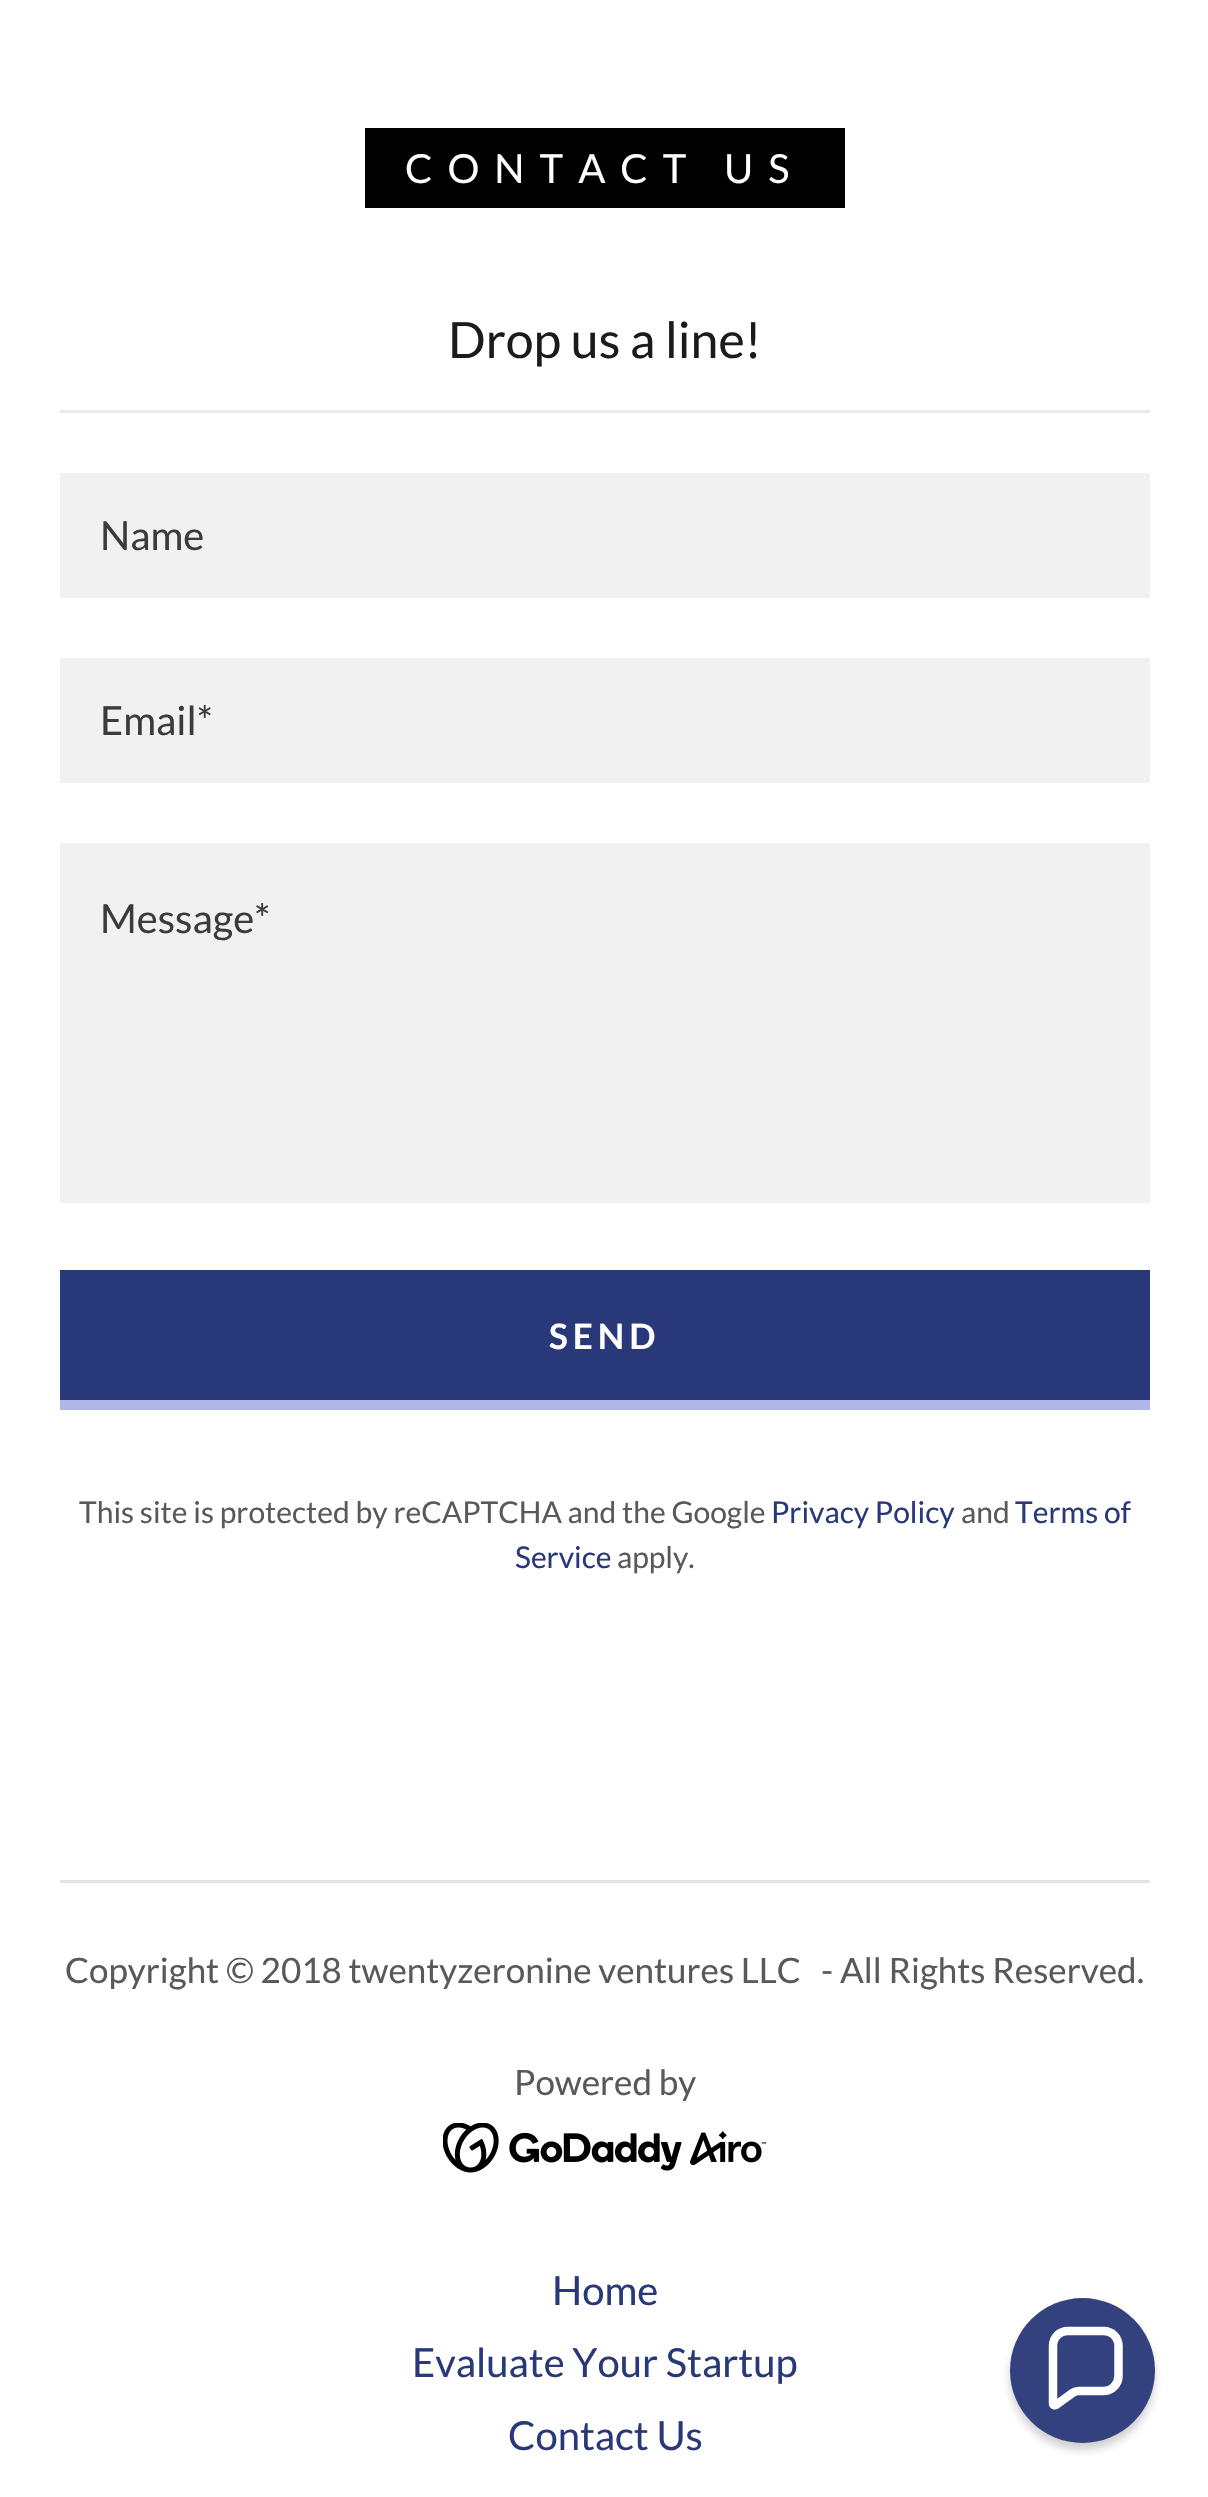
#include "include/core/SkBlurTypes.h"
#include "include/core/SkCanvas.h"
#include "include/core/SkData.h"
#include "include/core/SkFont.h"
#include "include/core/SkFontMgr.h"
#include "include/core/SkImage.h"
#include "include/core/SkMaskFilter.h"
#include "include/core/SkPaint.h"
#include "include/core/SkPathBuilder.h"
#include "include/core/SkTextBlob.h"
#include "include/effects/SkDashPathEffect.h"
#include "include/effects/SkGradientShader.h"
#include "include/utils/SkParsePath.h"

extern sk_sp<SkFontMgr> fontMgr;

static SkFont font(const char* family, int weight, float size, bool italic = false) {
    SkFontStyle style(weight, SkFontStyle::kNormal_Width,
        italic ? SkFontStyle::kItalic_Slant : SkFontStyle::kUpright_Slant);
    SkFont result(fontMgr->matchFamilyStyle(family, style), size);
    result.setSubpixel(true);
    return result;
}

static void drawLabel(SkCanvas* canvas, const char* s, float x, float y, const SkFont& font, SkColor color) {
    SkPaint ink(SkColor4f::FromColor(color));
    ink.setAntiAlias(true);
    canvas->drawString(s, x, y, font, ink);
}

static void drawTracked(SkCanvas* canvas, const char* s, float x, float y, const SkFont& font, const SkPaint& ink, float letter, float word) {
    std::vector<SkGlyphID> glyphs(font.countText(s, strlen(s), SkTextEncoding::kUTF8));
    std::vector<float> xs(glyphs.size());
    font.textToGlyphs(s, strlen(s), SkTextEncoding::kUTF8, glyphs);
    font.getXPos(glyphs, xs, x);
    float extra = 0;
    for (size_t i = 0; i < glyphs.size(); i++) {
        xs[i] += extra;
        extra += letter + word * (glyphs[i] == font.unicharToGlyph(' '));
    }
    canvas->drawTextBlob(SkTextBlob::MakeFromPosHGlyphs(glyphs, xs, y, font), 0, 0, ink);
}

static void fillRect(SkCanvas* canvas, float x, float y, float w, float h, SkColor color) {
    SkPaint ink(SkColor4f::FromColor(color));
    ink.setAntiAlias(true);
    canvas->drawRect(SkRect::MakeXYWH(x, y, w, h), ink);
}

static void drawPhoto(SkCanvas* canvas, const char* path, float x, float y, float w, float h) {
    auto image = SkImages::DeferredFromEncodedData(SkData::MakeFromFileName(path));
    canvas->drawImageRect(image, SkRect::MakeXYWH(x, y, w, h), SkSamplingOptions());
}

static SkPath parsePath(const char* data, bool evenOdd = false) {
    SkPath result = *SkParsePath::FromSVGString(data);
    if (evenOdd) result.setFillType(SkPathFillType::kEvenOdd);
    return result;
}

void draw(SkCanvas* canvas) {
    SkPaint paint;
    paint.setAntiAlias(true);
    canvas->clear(0xFFFFFFFF);
    fillRect(canvas, 365, 128, 480, 80, 0xFF000000);
    SkFont font1 = font("Lato", 400, 40);
    paint.setColor(0xFFFFFFFF);
    drawTracked(canvas, "CONTACT US", 405, 183, font1, paint, 15, 0);
    fillRect(canvas, 60, 410, 1090, 3, 0xFFEBEBEB);
    SkFont font2 = font("Lato", 400, 50);
    drawLabel(canvas, "Drop us a line!", 448, 358, font2, 0xFF1B1B1B);
    fillRect(canvas, 60, 473, 1090, 125, 0xFFF1F1F1);
    drawLabel(canvas, "Name", 100, 550, font1, 0xFF3B3B3B);
    fillRect(canvas, 60, 658, 1090, 125, 0xFFF1F1F1);
    drawLabel(canvas, "Email*", 100, 735, font1, 0xFF3B3B3B);
    fillRect(canvas, 60, 843, 1090, 360, 0xFFF1F1F1);
    drawLabel(canvas, "Message*", 100, 933, font1, 0xFF3B3B3B);
    fillRect(canvas, 60, 1270, 1090, 130, 0xFF283878);
    fillRect(canvas, 60, 1400, 1090, 10, 0xFFB0B8EA);
    SkFont font3 = font("Lato", 700, 35);
    drawTracked(canvas, "SEND", 549, 1349, font3, paint, 5, 0);
    SkFont font4 = font("Lato", 400, 30);
    drawLabel(canvas, "This site is protected by reCAPTCHA and the Google", 79, 1523, font4, 0xFF595959);
    drawLabel(canvas, "Privacy Policy", 771, 1523, font4, 0xFF283878);
    drawLabel(canvas, "and", 961, 1523, font4, 0xFF595959);
    drawLabel(canvas, "Terms of", 1015, 1523, font4, 0xFF283878);
    drawLabel(canvas, "Service", 515, 1568, font4, 0xFF283878);
    drawLabel(canvas, "apply.", 617, 1568, font4, 0xFF595959);
    fillRect(canvas, 60, 1880, 1090, 3, 0xFFE2E2E2);
    SkFont font5 = font("Lato", 400, 35);
    drawLabel(canvas, "Copyright © 2018 twentyzeronine ventures LLC   - All Rights Reserved.", 65, 1983, font5, 0xFF595959);
    drawLabel(canvas, "Powered by", 514, 2095, font5, 0xFF595959);
    drawPhoto(canvas, "assets/img1.png", 443, 2123, 323, 50);
    drawLabel(canvas, "Home", 552, 2305, font1, 0xFF283878);
    drawLabel(canvas, "Evaluate Your Startup", 412, 2377, font1, 0xFF283878);
    drawLabel(canvas, "Contact Us", 508, 2450, font1, 0xFF283878);
    paint.setColor(0x330D0D0D);
    paint.setMaskFilter(SkMaskFilter::MakeBlur(kNormal_SkBlurStyle, 4));
    canvas->drawRoundRect(SkRect::MakeXYWH(1010, 2305, 145, 145), 72.5f, 72.5f, paint);
    paint.setMaskFilter(nullptr);
    paint.setColor(0xFF33427F);
    canvas->drawCircle(1082.5f, 2370.5f, 72.5f, paint);
    paint.setStroke(true);
    paint.setStrokeWidth(8.5f);
    paint.setColor(0xFFFFFFFF);
    canvas->drawPath(parsePath("M1103.5 2331H1068C1059.5 2331 1053 2337.5 1053 2346V2403.5C1053 2405 1054.5 2405.5 1056 2405L1072.5 2393C1074.5 2391.5 1076.5 2391 1079 2391H1103.5C1112 2391 1118.5 2384 1118.5 2376V2346C1118.5 2337.5 1112 2331 1103.5 2331Z"), paint);
}
